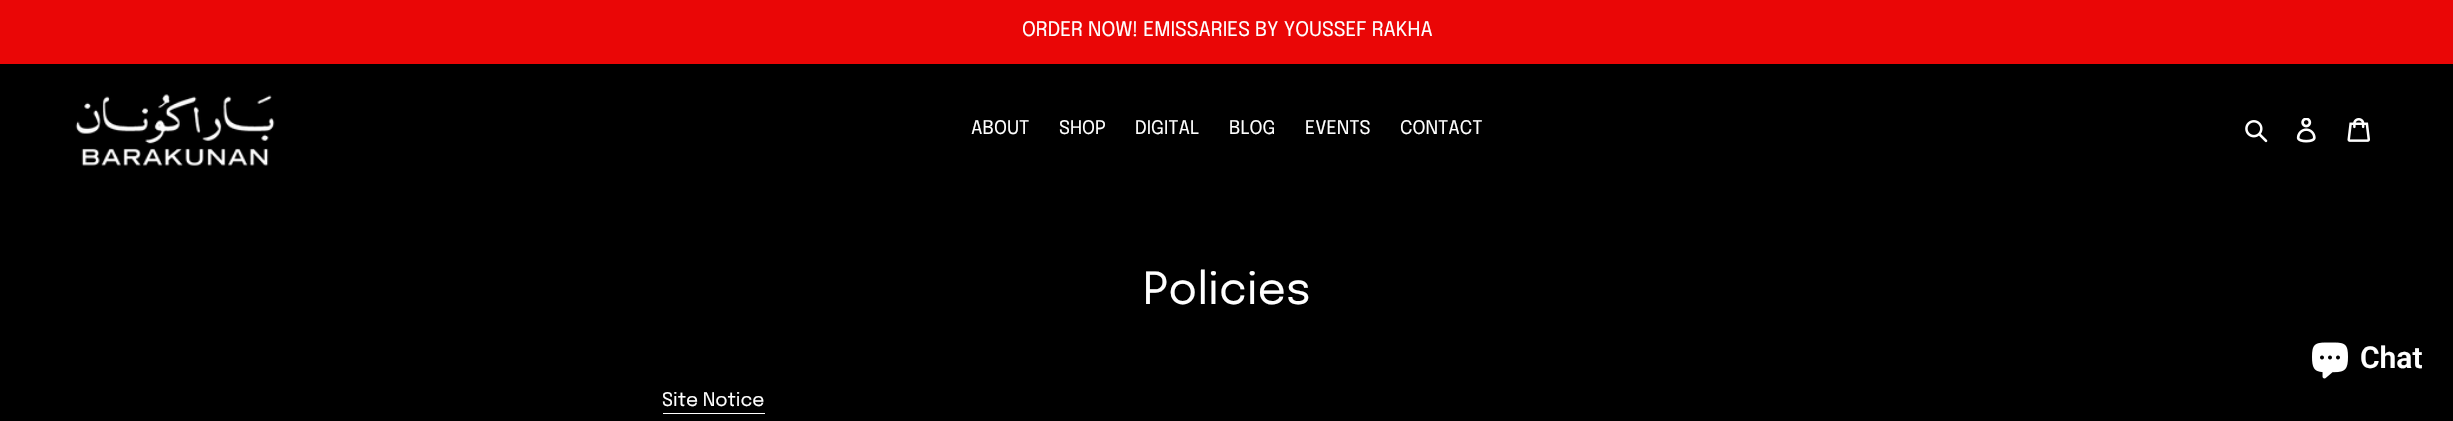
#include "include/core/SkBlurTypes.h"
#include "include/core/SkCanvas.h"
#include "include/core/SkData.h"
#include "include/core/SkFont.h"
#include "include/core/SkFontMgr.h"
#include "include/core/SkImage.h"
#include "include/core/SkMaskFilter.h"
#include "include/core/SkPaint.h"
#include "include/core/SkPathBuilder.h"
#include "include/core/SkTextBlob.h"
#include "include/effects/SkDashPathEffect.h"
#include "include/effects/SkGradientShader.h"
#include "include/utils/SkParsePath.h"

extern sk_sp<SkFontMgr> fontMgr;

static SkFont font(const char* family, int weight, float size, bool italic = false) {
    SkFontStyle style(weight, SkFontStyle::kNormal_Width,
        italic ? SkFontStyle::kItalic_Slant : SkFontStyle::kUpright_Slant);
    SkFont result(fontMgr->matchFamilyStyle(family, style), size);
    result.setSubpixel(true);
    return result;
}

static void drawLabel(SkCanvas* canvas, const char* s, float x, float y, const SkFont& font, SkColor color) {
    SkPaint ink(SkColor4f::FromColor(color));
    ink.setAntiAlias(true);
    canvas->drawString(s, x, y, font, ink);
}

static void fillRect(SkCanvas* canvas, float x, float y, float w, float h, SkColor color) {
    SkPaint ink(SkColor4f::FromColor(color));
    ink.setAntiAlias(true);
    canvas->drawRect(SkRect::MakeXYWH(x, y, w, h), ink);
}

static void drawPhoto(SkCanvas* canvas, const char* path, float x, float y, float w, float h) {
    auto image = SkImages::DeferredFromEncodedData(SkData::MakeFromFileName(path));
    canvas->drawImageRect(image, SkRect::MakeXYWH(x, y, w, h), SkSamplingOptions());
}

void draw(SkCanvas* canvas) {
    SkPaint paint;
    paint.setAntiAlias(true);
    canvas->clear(0xFF000000);
    fillRect(canvas, 0, 0, 2453, 64, 0xFFEA0606);
    SkFont font1 = font("Epilogue", 400, 20);
    drawLabel(canvas, "ORDER NOW! EMISSARIES BY YOUSSEF RAKHA", 1022, 36, font1, 0xFFFFFFFF);
    drawPhoto(canvas, "assets/img1.png", 75, 94, 200, 72);
    SkFont font2 = font("Epilogue", 400, 18.75f);
    drawLabel(canvas, "ABOUT", 971, 134, font2, 0xFFFFFFFF);
    drawLabel(canvas, "SHOP", 1059, 134, font2, 0xFFFFFFFF);
    drawLabel(canvas, "DIGITAL", 1135, 134, font2, 0xFFFFFFFF);
    drawLabel(canvas, "BLOG", 1229, 134, font2, 0xFFFFFFFF);
    drawLabel(canvas, "EVENTS", 1305, 134, font2, 0xFFFFFFFF);
    drawLabel(canvas, "CONTACT", 1400, 134, font2, 0xFFFFFFFF);
    drawPhoto(canvas, "assets/img2.png", 2245, 120, 23, 23);
    drawPhoto(canvas, "assets/img3.png", 2296, 118, 20, 25);
    drawPhoto(canvas, "assets/img4.png", 2347, 118, 23, 24);
    SkFont font3 = font("Epilogue", 400, 44);
    drawLabel(canvas, "Policies", 1143, 304, font3, 0xFFFFFFFF);
    drawLabel(canvas, "Site Notice", 662, 406, font2, 0xFFFFFFFF);
    fillRect(canvas, 663, 413, 102, 1, 0xFFFFFFFF);
    drawPhoto(canvas, "assets/img5.png", 2312, 342, 36, 37);
    SkFont font4 = font("Roboto", 600, 30);
    drawLabel(canvas, "Chat", 2360, 368, font4, 0xFFFFFFFF);
}
